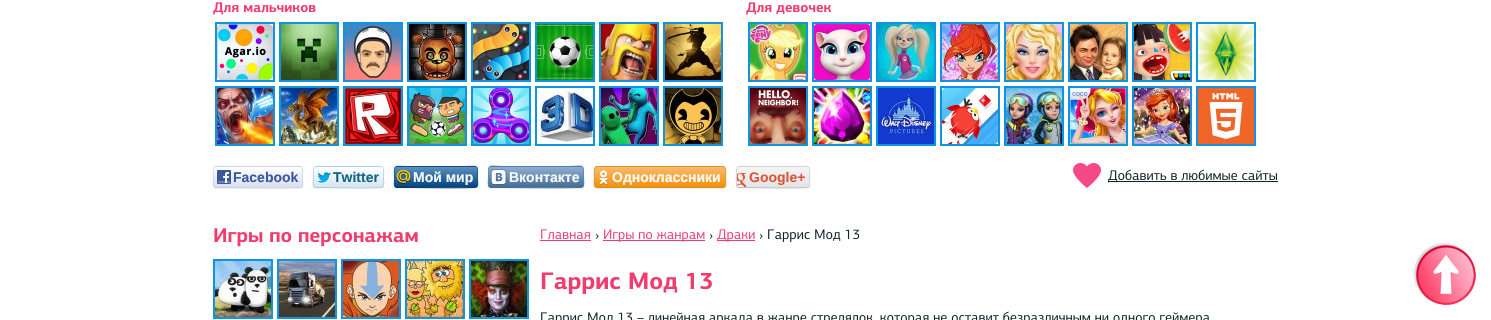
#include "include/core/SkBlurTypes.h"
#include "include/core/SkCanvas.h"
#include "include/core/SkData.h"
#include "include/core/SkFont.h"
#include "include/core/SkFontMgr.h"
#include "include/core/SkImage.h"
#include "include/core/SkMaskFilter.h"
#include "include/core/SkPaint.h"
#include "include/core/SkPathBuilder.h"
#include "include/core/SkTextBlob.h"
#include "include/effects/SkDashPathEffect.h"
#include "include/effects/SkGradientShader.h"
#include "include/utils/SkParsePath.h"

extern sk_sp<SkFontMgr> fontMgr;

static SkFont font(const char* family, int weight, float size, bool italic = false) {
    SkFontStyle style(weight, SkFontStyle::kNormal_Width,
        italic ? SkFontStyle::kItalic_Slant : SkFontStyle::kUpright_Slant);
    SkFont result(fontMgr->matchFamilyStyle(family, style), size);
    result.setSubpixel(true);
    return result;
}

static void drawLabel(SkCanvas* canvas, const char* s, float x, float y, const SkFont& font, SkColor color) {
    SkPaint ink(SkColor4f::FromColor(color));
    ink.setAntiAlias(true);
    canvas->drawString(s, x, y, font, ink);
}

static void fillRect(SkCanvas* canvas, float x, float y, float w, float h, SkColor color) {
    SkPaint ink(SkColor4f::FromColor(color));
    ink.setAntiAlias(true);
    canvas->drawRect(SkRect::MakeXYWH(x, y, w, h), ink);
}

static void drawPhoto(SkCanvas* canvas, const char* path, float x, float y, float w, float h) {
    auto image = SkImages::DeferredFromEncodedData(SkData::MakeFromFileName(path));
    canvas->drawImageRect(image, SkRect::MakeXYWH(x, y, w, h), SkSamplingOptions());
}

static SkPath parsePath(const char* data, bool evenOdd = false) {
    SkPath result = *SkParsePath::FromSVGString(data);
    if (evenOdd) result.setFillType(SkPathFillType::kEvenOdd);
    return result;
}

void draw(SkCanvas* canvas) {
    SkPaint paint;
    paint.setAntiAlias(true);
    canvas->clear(0xFFFFFFFF);
    drawPhoto(canvas, "assets/img1.png", 213, 2, 103, 13);
    paint.setStroke(true);
    paint.setStrokeWidth(2);
    paint.setColor(0xFF0E94E0);
    canvas->drawRect(SkRect::MakeXYWH(216, 23, 58, 58), paint);
    drawPhoto(canvas, "assets/img2.png", 217, 24, 56, 56);
    canvas->drawRect(SkRect::MakeXYWH(280, 23, 58, 58), paint);
    drawPhoto(canvas, "assets/img3.png", 281, 24, 56, 56);
    canvas->drawRect(SkRect::MakeXYWH(344, 23, 58, 58), paint);
    drawPhoto(canvas, "assets/img4.png", 345, 24, 56, 56);
    canvas->drawRect(SkRect::MakeXYWH(408, 23, 58, 58), paint);
    drawPhoto(canvas, "assets/img5.png", 409, 24, 56, 56);
    canvas->drawRect(SkRect::MakeXYWH(472, 23, 58, 58), paint);
    drawPhoto(canvas, "assets/img6.png", 473, 24, 56, 56);
    canvas->drawRect(SkRect::MakeXYWH(536, 23, 58, 58), paint);
    drawPhoto(canvas, "assets/img7.png", 537, 24, 56, 56);
    canvas->drawRect(SkRect::MakeXYWH(600, 23, 58, 58), paint);
    drawPhoto(canvas, "assets/img8.png", 601, 24, 56, 56);
    canvas->drawRect(SkRect::MakeXYWH(664, 23, 58, 58), paint);
    drawPhoto(canvas, "assets/img9.png", 665, 24, 56, 56);
    canvas->drawRect(SkRect::MakeXYWH(216, 87, 58, 58), paint);
    drawPhoto(canvas, "assets/img10.png", 217, 88, 56, 56);
    canvas->drawRect(SkRect::MakeXYWH(280, 87, 58, 58), paint);
    drawPhoto(canvas, "assets/img11.png", 281, 88, 56, 56);
    canvas->drawRect(SkRect::MakeXYWH(344, 87, 58, 58), paint);
    drawPhoto(canvas, "assets/img12.png", 345, 88, 56, 56);
    canvas->drawRect(SkRect::MakeXYWH(408, 87, 58, 58), paint);
    drawPhoto(canvas, "assets/img13.png", 409, 88, 56, 56);
    canvas->drawRect(SkRect::MakeXYWH(472, 87, 58, 58), paint);
    drawPhoto(canvas, "assets/img14.png", 473, 88, 56, 56);
    canvas->drawRect(SkRect::MakeXYWH(536, 87, 58, 58), paint);
    drawPhoto(canvas, "assets/img15.png", 537, 88, 56, 56);
    canvas->drawRect(SkRect::MakeXYWH(600, 87, 58, 58), paint);
    drawPhoto(canvas, "assets/img16.png", 601, 88, 56, 56);
    canvas->drawRect(SkRect::MakeXYWH(664, 87, 58, 58), paint);
    drawPhoto(canvas, "assets/img17.png", 665, 88, 56, 56);
    drawPhoto(canvas, "assets/img18.png", 746, 2, 86, 13);
    canvas->drawRect(SkRect::MakeXYWH(749, 23, 58, 58), paint);
    drawPhoto(canvas, "assets/img19.png", 750, 24, 56, 56);
    canvas->drawRect(SkRect::MakeXYWH(813, 23, 58, 58), paint);
    drawPhoto(canvas, "assets/img20.png", 814, 24, 56, 56);
    canvas->drawRect(SkRect::MakeXYWH(877, 23, 58, 58), paint);
    drawPhoto(canvas, "assets/img21.png", 878, 24, 56, 56);
    canvas->drawRect(SkRect::MakeXYWH(941, 23, 58, 58), paint);
    drawPhoto(canvas, "assets/img22.png", 942, 24, 56, 56);
    canvas->drawRect(SkRect::MakeXYWH(1005, 23, 58, 58), paint);
    drawPhoto(canvas, "assets/img23.png", 1006, 24, 56, 56);
    canvas->drawRect(SkRect::MakeXYWH(1069, 23, 58, 58), paint);
    drawPhoto(canvas, "assets/img24.png", 1070, 24, 56, 56);
    canvas->drawRect(SkRect::MakeXYWH(1133, 23, 58, 58), paint);
    drawPhoto(canvas, "assets/img25.png", 1134, 24, 56, 56);
    canvas->drawRect(SkRect::MakeXYWH(1197, 23, 58, 58), paint);
    drawPhoto(canvas, "assets/img26.png", 1198, 24, 56, 56);
    canvas->drawRect(SkRect::MakeXYWH(749, 87, 58, 58), paint);
    drawPhoto(canvas, "assets/img27.png", 750, 88, 56, 56);
    canvas->drawRect(SkRect::MakeXYWH(813, 87, 58, 58), paint);
    drawPhoto(canvas, "assets/img28.png", 814, 88, 56, 56);
    canvas->drawRect(SkRect::MakeXYWH(877, 87, 58, 58), paint);
    drawPhoto(canvas, "assets/img29.png", 878, 88, 56, 56);
    canvas->drawRect(SkRect::MakeXYWH(941, 87, 58, 58), paint);
    drawPhoto(canvas, "assets/img30.png", 942, 88, 56, 56);
    canvas->drawRect(SkRect::MakeXYWH(1005, 87, 58, 58), paint);
    drawPhoto(canvas, "assets/img31.png", 1006, 88, 56, 56);
    canvas->drawRect(SkRect::MakeXYWH(1069, 87, 58, 58), paint);
    drawPhoto(canvas, "assets/img32.png", 1070, 88, 56, 56);
    canvas->drawRect(SkRect::MakeXYWH(1133, 87, 58, 58), paint);
    drawPhoto(canvas, "assets/img33.png", 1134, 88, 56, 56);
    canvas->drawRect(SkRect::MakeXYWH(1197, 87, 58, 58), paint);
    drawPhoto(canvas, "assets/img34.png", 1198, 88, 56, 56);
    paint.setStroke(false);
    paint.setColor(0x0D000000);
    paint.setMaskFilter(SkMaskFilter::MakeBlur(kNormal_SkBlurStyle, 0.5f));
    canvas->drawRoundRect(SkRect::MakeXYWH(213, 167, 90, 22), 3, 3, paint);
    paint.setMaskFilter(nullptr);
    canvas->save();
    canvas->clipPath(parsePath("M216 166H300C301.5 166 303 167.5 303 169V185C303 186.5 301.5 188 300 188H216C214.5 188 213 186.5 213 185V169C213 167.5 214.5 166 216 166Z"), true);
    {
        const SkColor colors[] = {0xFFFFFFFF, 0xFFD8DEF4};
        const float stops[] = {0, 1};
        const SkPoint ends[] = {{258, 147}, {258, 167}};
        paint.setShader(SkGradientShader::MakeLinear(ends, colors, stops, 2, SkTileMode::kClamp));
        paint.setAlpha(255);
    }
    canvas->drawRect(SkRect::MakeXYWH(213, 166, 90, 1), paint);
    {
        const SkColor colors[] = {0xFFFFFFFF, 0xFFD8DEF4};
        const float stops[] = {0, 1};
        const SkPoint ends[] = {{258, 167}, {258, 187}};
        paint.setShader(SkGradientShader::MakeLinear(ends, colors, stops, 2, SkTileMode::kClamp));
        paint.setAlpha(255);
    }
    canvas->drawRect(SkRect::MakeXYWH(213, 167, 90, 20), paint);
    {
        const SkColor colors[] = {0xFFFFFFFF, 0xFFD8DEF4};
        const float stops[] = {0, 1};
        const SkPoint ends[] = {{258, 187}, {258, 207}};
        paint.setShader(SkGradientShader::MakeLinear(ends, colors, stops, 2, SkTileMode::kClamp));
        paint.setAlpha(255);
    }
    canvas->drawRect(SkRect::MakeXYWH(213, 187, 90, 1), paint);
    canvas->restore();
    paint.setStroke(true);
    paint.setStrokeWidth(1);
    paint.setShader(nullptr);
    paint.setColor(0xCCBDC2CB);
    canvas->drawPath(parsePath("M302 187H301.5C299.5 188.5 237.5 187.5 230 187.5H216L214 187"), paint);
    paint.setColor(0xCCCAD4E7);
    canvas->drawPath(parsePath("M214 187C212.5 185 213.5 181.5 213.5 179.5C213.5 163 211 166.5 230 166.5H286C305 166.5 302.5 163 302.5 179.5C302.5 181.5 303.5 185 302 187"), paint);
    drawPhoto(canvas, "assets/img35.png", 217, 170, 14, 14);
    SkFont font1 = font("Liberation Sans", 700, 14);
    drawLabel(canvas, "Facebook", 233, 182, font1, 0xFF3B5998);
    paint.setStroke(false);
    paint.setColor(0x0D000000);
    paint.setMaskFilter(SkMaskFilter::MakeBlur(kNormal_SkBlurStyle, 0.5f));
    canvas->drawRoundRect(SkRect::MakeXYWH(313, 167, 71, 22), 3, 3, paint);
    paint.setMaskFilter(nullptr);
    canvas->save();
    canvas->clipPath(parsePath("M316 166H381C382.5 166 384 167.5 384 169V185C384 186.5 382.5 188 381 188H316C314.5 188 313 186.5 313 185V169C313 167.5 314.5 166 316 166Z"), true);
    {
        const SkColor colors[] = {0xFFFFFFFF, 0xFFD5E6EF};
        const float stops[] = {0, 1};
        const SkPoint ends[] = {{349, 147}, {349, 167}};
        paint.setShader(SkGradientShader::MakeLinear(ends, colors, stops, 2, SkTileMode::kClamp));
        paint.setAlpha(255);
    }
    canvas->drawRect(SkRect::MakeXYWH(313, 166, 71, 1), paint);
    {
        const SkColor colors[] = {0xFFFFFFFF, 0xFFD5E6EF};
        const float stops[] = {0, 1};
        const SkPoint ends[] = {{349, 167}, {349, 187}};
        paint.setShader(SkGradientShader::MakeLinear(ends, colors, stops, 2, SkTileMode::kClamp));
        paint.setAlpha(255);
    }
    canvas->drawRect(SkRect::MakeXYWH(313, 167, 71, 20), paint);
    {
        const SkColor colors[] = {0xFFFFFFFF, 0xFFD5E6EF};
        const float stops[] = {0, 1};
        const SkPoint ends[] = {{349, 187}, {349, 207}};
        paint.setShader(SkGradientShader::MakeLinear(ends, colors, stops, 2, SkTileMode::kClamp));
        paint.setAlpha(255);
    }
    canvas->drawRect(SkRect::MakeXYWH(313, 187, 71, 1), paint);
    canvas->restore();
    paint.setStroke(true);
    paint.setShader(nullptr);
    paint.setColor(0xCC9EBACC);
    canvas->drawPath(parsePath("M383 187H382.5C380.5 188.5 333 187.5 327 187.5H316L314 187"), paint);
    paint.setColor(0xCCA4CCE5);
    canvas->drawPath(parsePath("M314 187C312.5 185 313.5 181.5 313.5 179.5C313.5 164 311 166.5 327 166.5H370C386 166.5 383.5 164 383.5 179.5C383.5 181.5 384.5 185 383 187"), paint);
    drawPhoto(canvas, "assets/img36.png", 317, 172, 14, 11);
    drawLabel(canvas, "Twitter", 333, 182, font1, 0xFF186487);
    paint.setStroke(false);
    paint.setColor(0x0D000000);
    paint.setMaskFilter(SkMaskFilter::MakeBlur(kNormal_SkBlurStyle, 0.5f));
    canvas->drawRoundRect(SkRect::MakeXYWH(394, 167, 84, 22), 3, 3, paint);
    paint.setMaskFilter(nullptr);
    canvas->save();
    canvas->clipPath(parsePath("M397 166H475C476.5 166 478 167.5 478 169V185C478 186.5 476.5 188 475 188H397C395.5 188 394 186.5 394 185V169C394 167.5 395.5 166 397 166Z"), true);
    {
        const SkColor colors[] = {0xFF5D90BA, 0xFF004584};
        const float stops[] = {0, 1};
        const SkPoint ends[] = {{436, 147}, {436, 167}};
        paint.setShader(SkGradientShader::MakeLinear(ends, colors, stops, 2, SkTileMode::kClamp));
        paint.setAlpha(255);
    }
    canvas->drawRect(SkRect::MakeXYWH(394, 166, 84, 1), paint);
    {
        const SkColor colors[] = {0xFF5D90BA, 0xFF004584};
        const float stops[] = {0, 1};
        const SkPoint ends[] = {{436, 167}, {436, 187}};
        paint.setShader(SkGradientShader::MakeLinear(ends, colors, stops, 2, SkTileMode::kClamp));
        paint.setAlpha(255);
    }
    canvas->drawRect(SkRect::MakeXYWH(394, 167, 84, 20), paint);
    {
        const SkColor colors[] = {0xFF5D90BA, 0xFF004584};
        const float stops[] = {0, 1};
        const SkPoint ends[] = {{436, 187}, {436, 207}};
        paint.setShader(SkGradientShader::MakeLinear(ends, colors, stops, 2, SkTileMode::kClamp));
        paint.setAlpha(255);
    }
    canvas->drawRect(SkRect::MakeXYWH(394, 187, 84, 1), paint);
    canvas->restore();
    paint.setStroke(true);
    paint.setShader(nullptr);
    paint.setColor(0xCC031B30);
    canvas->drawPath(parsePath("M477 187H476.5C474.5 188.5 417 187.5 410 187.5H397L395 187"), paint);
    paint.setColor(0xCC0B5499);
    canvas->drawPath(parsePath("M395 187C393.5 185 394.5 181.5 394.5 179.5C394.5 163.5 392 166.5 410 166.5H462C480 166.5 477.5 163.5 477.5 179.5C477.5 181.5 478.5 185 477 187"), paint);
    drawPhoto(canvas, "assets/img37.png", 396, 169, 15, 15);
    drawLabel(canvas, "Мой мир", 413, 182, font1, 0xFFF4F7FA);
    paint.setStroke(false);
    paint.setColor(0x0D000000);
    paint.setMaskFilter(SkMaskFilter::MakeBlur(kNormal_SkBlurStyle, 0.5f));
    canvas->drawRoundRect(SkRect::MakeXYWH(488, 167, 96, 22), 3, 3, paint);
    paint.setMaskFilter(nullptr);
    canvas->save();
    canvas->clipPath(parsePath("M491 166H581C582.5 166 584 167.5 584 169V185C584 186.5 582.5 188 581 188H491C489.5 188 488 186.5 488 185V169C488 167.5 489.5 166 491 166Z"), true);
    {
        const SkColor colors[] = {0xFF8FAECF, 0xFF436F96};
        const float stops[] = {0, 1};
        const SkPoint ends[] = {{536, 147}, {536, 167}};
        paint.setShader(SkGradientShader::MakeLinear(ends, colors, stops, 2, SkTileMode::kClamp));
        paint.setAlpha(255);
    }
    canvas->drawRect(SkRect::MakeXYWH(488, 166, 96, 1), paint);
    {
        const SkColor colors[] = {0xFF8FAECF, 0xFF436F96};
        const float stops[] = {0, 1};
        const SkPoint ends[] = {{536, 167}, {536, 187}};
        paint.setShader(SkGradientShader::MakeLinear(ends, colors, stops, 2, SkTileMode::kClamp));
        paint.setAlpha(255);
    }
    canvas->drawRect(SkRect::MakeXYWH(488, 167, 96, 20), paint);
    {
        const SkColor colors[] = {0xFF8FAECF, 0xFF436F96};
        const float stops[] = {0, 1};
        const SkPoint ends[] = {{536, 187}, {536, 207}};
        paint.setShader(SkGradientShader::MakeLinear(ends, colors, stops, 2, SkTileMode::kClamp));
        paint.setAlpha(255);
    }
    canvas->drawRect(SkRect::MakeXYWH(488, 187, 96, 1), paint);
    canvas->restore();
    paint.setStroke(true);
    paint.setShader(nullptr);
    paint.setColor(0xCC34587F);
    canvas->drawPath(parsePath("M583 187H582.5C580.5 188.5 514 187.5 506 187.5H491L489 187"), paint);
    paint.setColor(0xCC4E83C1);
    canvas->drawPath(parsePath("M489 187C487.5 185 488.5 179 488.5 177C488.5 162.5 488 166.5 506 166.5H566C584 166.5 583.5 162.5 583.5 177C583.5 179 584.5 185 583 187"), paint);
    drawPhoto(canvas, "assets/img38.png", 490, 169, 17, 16);
    drawLabel(canvas, "Вконтакте", 509, 182, font1, 0xFFF4F7FA);
    paint.setStroke(false);
    paint.setColor(0x0D000000);
    paint.setMaskFilter(SkMaskFilter::MakeBlur(kNormal_SkBlurStyle, 0.5f));
    canvas->drawRoundRect(SkRect::MakeXYWH(594, 167, 132, 22), 3, 3, paint);
    paint.setMaskFilter(nullptr);
    canvas->save();
    canvas->clipPath(parsePath("M597 166H723C724.5 166 726 167.5 726 169V185C726 186.5 724.5 188 723 188H597C595.5 188 594 186.5 594 185V169C594 167.5 595.5 166 597 166Z"), true);
    {
        const SkColor colors[] = {0xFFF6BB6D, 0xFFF6900B};
        const float stops[] = {0, 1};
        const SkPoint ends[] = {{660, 147}, {660, 167}};
        paint.setShader(SkGradientShader::MakeLinear(ends, colors, stops, 2, SkTileMode::kClamp));
        paint.setAlpha(255);
    }
    canvas->drawRect(SkRect::MakeXYWH(594, 166, 132, 1), paint);
    {
        const SkColor colors[] = {0xFFF6BB6D, 0xFFF6900B};
        const float stops[] = {0, 1};
        const SkPoint ends[] = {{660, 167}, {660, 187}};
        paint.setShader(SkGradientShader::MakeLinear(ends, colors, stops, 2, SkTileMode::kClamp));
        paint.setAlpha(255);
    }
    canvas->drawRect(SkRect::MakeXYWH(594, 167, 132, 20), paint);
    {
        const SkColor colors[] = {0xFFF6BB6D, 0xFFF6900B};
        const float stops[] = {0, 1};
        const SkPoint ends[] = {{660, 187}, {660, 207}};
        paint.setShader(SkGradientShader::MakeLinear(ends, colors, stops, 2, SkTileMode::kClamp));
        paint.setAlpha(255);
    }
    canvas->drawRect(SkRect::MakeXYWH(594, 187, 132, 1), paint);
    canvas->restore();
    paint.setStroke(true);
    paint.setShader(nullptr);
    paint.setColor(0xCCC58907);
    canvas->drawPath(parsePath("M725 187L723 187.5H597L595 187"), paint);
    paint.setColor(0xCCD99A26);
    canvas->drawPath(parsePath("M595 187C593.5 185 594.5 179 594.5 177C594.5 175 593 166.5 597 166.5H723C727 166.5 725.5 175 725.5 177C725.5 179 726.5 185 725 187"), paint);
    drawPhoto(canvas, "assets/img39.png", 599, 170, 9, 15);
    drawLabel(canvas, "Одноклассники", 612, 182, font1, 0xFFFFFAF5);
    paint.setStroke(false);
    paint.setColor(0x0D000000);
    paint.setMaskFilter(SkMaskFilter::MakeBlur(kNormal_SkBlurStyle, 0.5f));
    canvas->drawRoundRect(SkRect::MakeXYWH(736, 167, 74, 22), 3, 3, paint);
    paint.setMaskFilter(nullptr);
    canvas->save();
    canvas->clipPath(parsePath("M739 166H807C808.5 166 810 167.5 810 169V185C810 186.5 808.5 188 807 188H739C737.5 188 736 186.5 736 185V169C736 167.5 737.5 166 739 166Z"), true);
    {
        const SkColor colors[] = {0xFFF5F5F5, 0xFFE4E4E4};
        const float stops[] = {0, 1};
        const SkPoint ends[] = {{773, 147}, {773, 167}};
        paint.setShader(SkGradientShader::MakeLinear(ends, colors, stops, 2, SkTileMode::kClamp));
        paint.setAlpha(255);
    }
    canvas->drawRect(SkRect::MakeXYWH(736, 166, 74, 1), paint);
    {
        const SkColor colors[] = {0xFFF5F5F5, 0xFFE4E4E4};
        const float stops[] = {0, 1};
        const SkPoint ends[] = {{773, 167}, {773, 187}};
        paint.setShader(SkGradientShader::MakeLinear(ends, colors, stops, 2, SkTileMode::kClamp));
        paint.setAlpha(255);
    }
    canvas->drawRect(SkRect::MakeXYWH(736, 167, 74, 20), paint);
    {
        const SkColor colors[] = {0xFFF5F5F5, 0xFFE4E4E4};
        const float stops[] = {0, 1};
        const SkPoint ends[] = {{773, 187}, {773, 207}};
        paint.setShader(SkGradientShader::MakeLinear(ends, colors, stops, 2, SkTileMode::kClamp));
        paint.setAlpha(255);
    }
    canvas->drawRect(SkRect::MakeXYWH(736, 187, 74, 1), paint);
    canvas->restore();
    paint.setStroke(true);
    paint.setShader(nullptr);
    paint.setColor(0xFFC0C0C0);
    canvas->drawPath(parsePath("M809 187H808.5C806.5 188.5 757 187.5 750.5 187.5H739L737 187"), paint);
    paint.setColor(0xCCCCCCCC);
    canvas->drawPath(parsePath("M737 187C735.5 185 736.5 181.5 736.5 179.5C736.5 164 734 166.5 750.5 166.5H795.5C812 166.5 809.5 164 809.5 179.5C809.5 181.5 810.5 185 809 187"), paint);
    drawPhoto(canvas, "assets/img40.png", 737, 173, 10, 14);
    drawLabel(canvas, "Google+", 749, 182, font1, 0xFFDA573B);
    drawPhoto(canvas, "assets/img41.png", 1073, 163, 28, 25);
    fillRect(canvas, 1108, 181, 170, 1, 0xFF102429);
    drawPhoto(canvas, "assets/img42.png", 1108, 169, 169, 14);
    drawPhoto(canvas, "assets/img43.png", 214, 228, 204, 19);
    paint.setStrokeWidth(2);
    paint.setColor(0xFF0E94E0);
    canvas->drawRect(SkRect::MakeXYWH(214, 260, 58, 58), paint);
    drawPhoto(canvas, "assets/img44.png", 215, 261, 56, 56);
    canvas->drawRect(SkRect::MakeXYWH(278, 260, 58, 58), paint);
    drawPhoto(canvas, "assets/img45.png", 279, 261, 56, 56);
    canvas->drawRect(SkRect::MakeXYWH(342, 260, 58, 58), paint);
    drawPhoto(canvas, "assets/img46.png", 343, 261, 56, 56);
    canvas->drawRect(SkRect::MakeXYWH(406, 260, 58, 58), paint);
    drawPhoto(canvas, "assets/img47.png", 407, 261, 56, 56);
    canvas->drawRect(SkRect::MakeXYWH(470, 260, 58, 58), paint);
    drawPhoto(canvas, "assets/img48.png", 471, 261, 56, 56);
    drawPhoto(canvas, "assets/img49.png", 541, 229, 49, 11);
    drawPhoto(canvas, "assets/img50.png", 596, 233, 3, 6);
    fillRect(canvas, 603, 240, 102, 1, 0xFFEF3D6F);
    drawPhoto(canvas, "assets/img51.png", 604, 229, 101, 13);
    drawPhoto(canvas, "assets/img50.png", 710, 233, 3, 6);
    fillRect(canvas, 717, 240, 38, 1, 0xFFEF3D6F);
    drawPhoto(canvas, "assets/img52.png", 717, 229, 38, 13);
    drawPhoto(canvas, "assets/img50.png", 760, 233, 3, 6);
    drawPhoto(canvas, "assets/img53.png", 768, 229, 92, 13);
    fillRect(canvas, 540, 240, 51, 1, 0xFFEF3D6F);
    drawPhoto(canvas, "assets/img54.png", 541, 272, 171, 22);
    drawPhoto(canvas, "assets/img55.png", 541, 311, 668, 9);
    drawPhoto(canvas, "assets/img56.png", 1413, 242, 63, 63);
}
